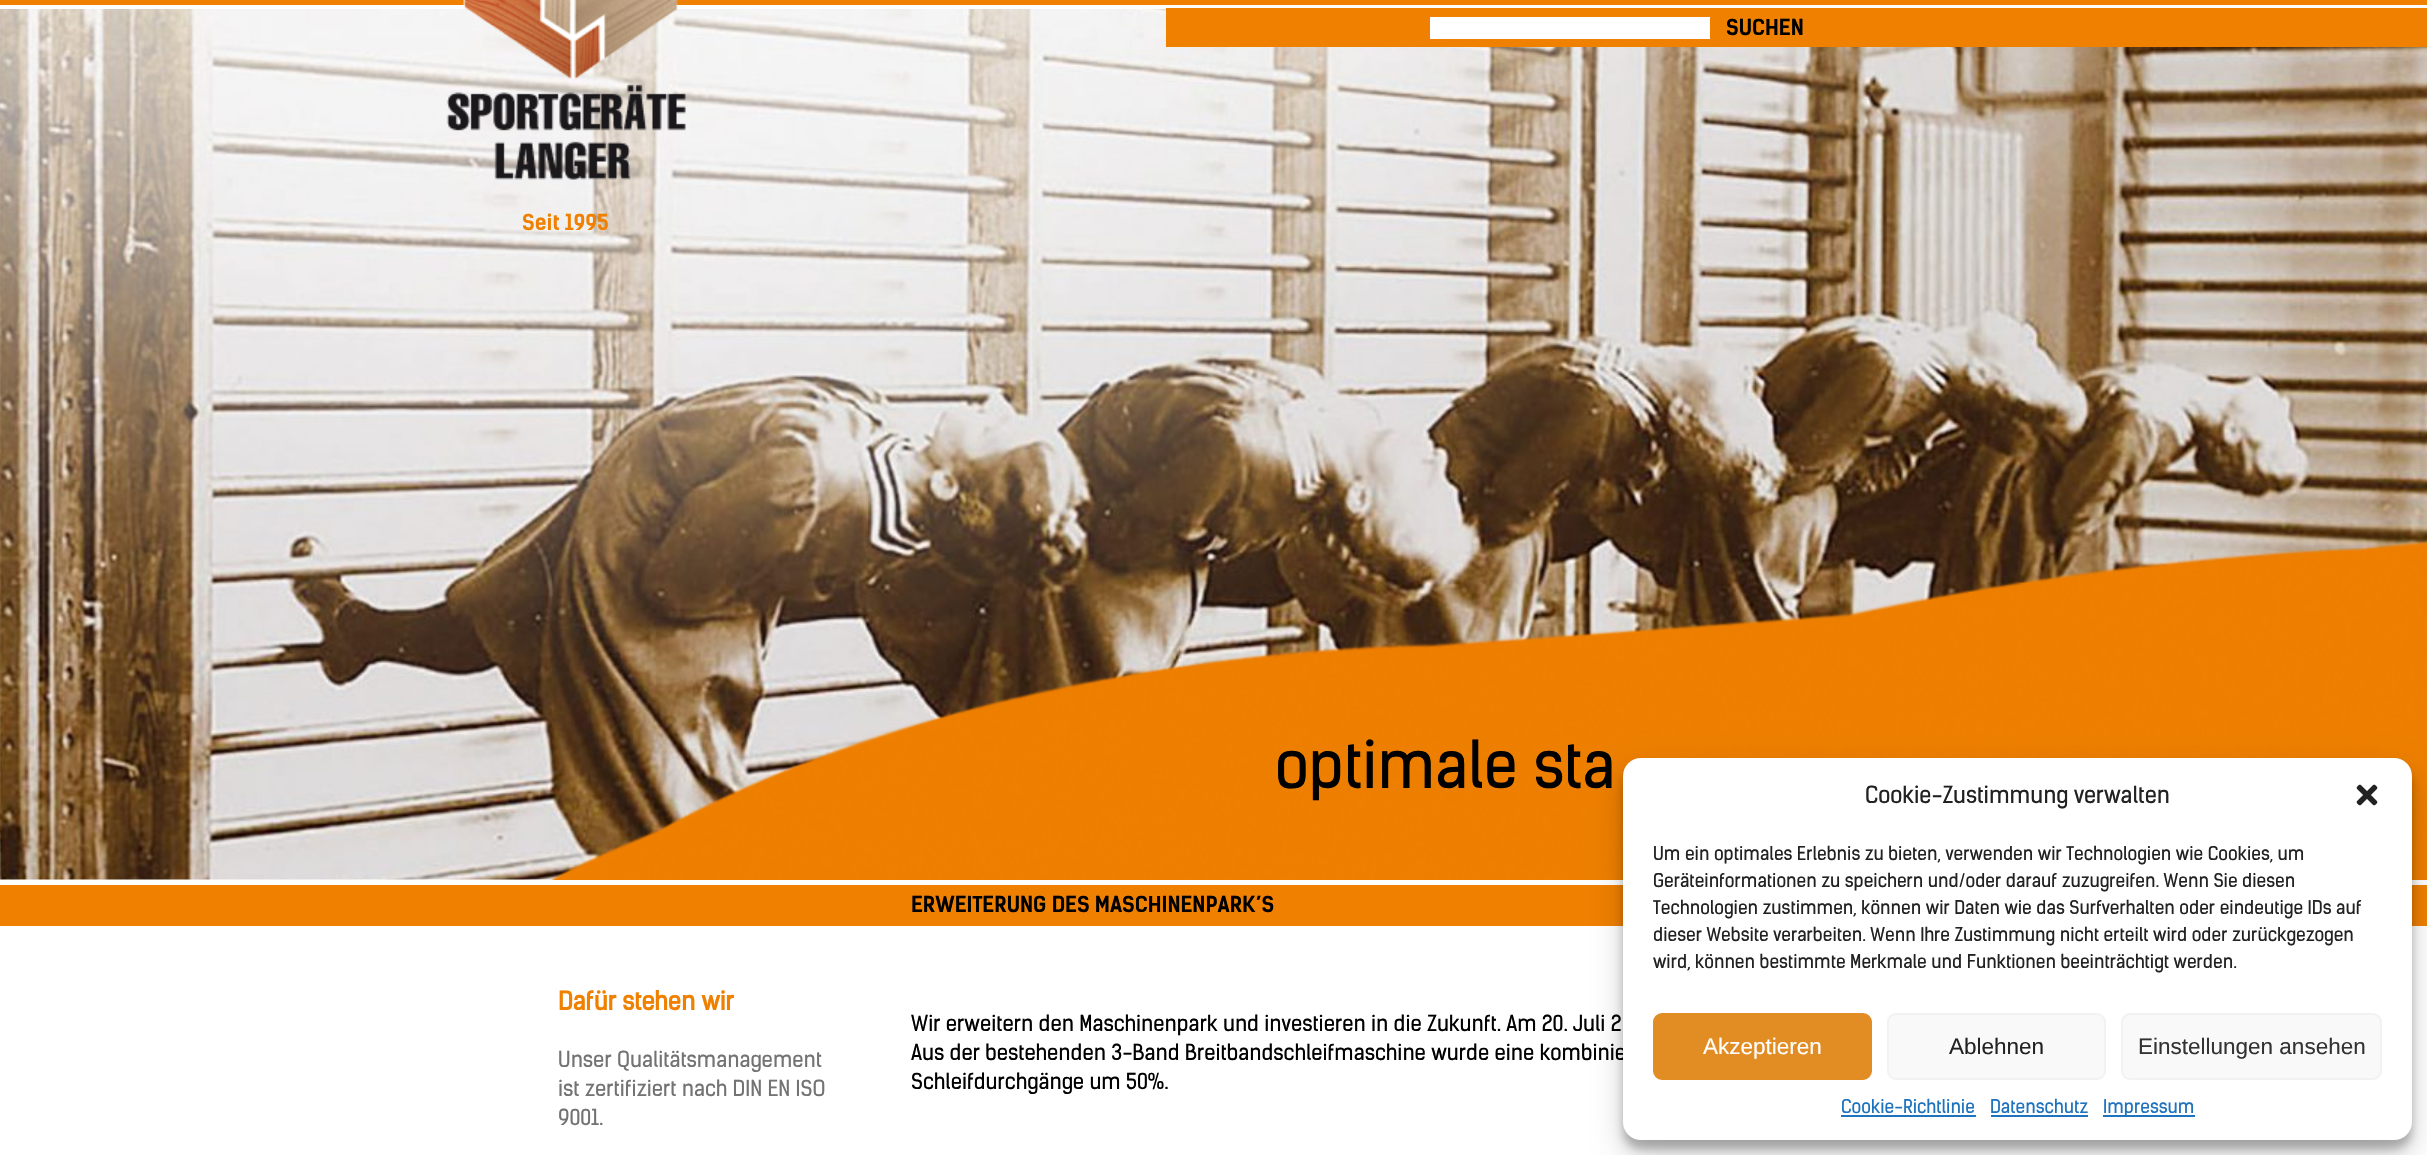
#include "include/core/SkBlurTypes.h"
#include "include/core/SkCanvas.h"
#include "include/core/SkData.h"
#include "include/core/SkFont.h"
#include "include/core/SkFontMgr.h"
#include "include/core/SkImage.h"
#include "include/core/SkMaskFilter.h"
#include "include/core/SkPaint.h"
#include "include/core/SkPathBuilder.h"
#include "include/core/SkTextBlob.h"
#include "include/effects/SkDashPathEffect.h"
#include "include/effects/SkGradientShader.h"
#include "include/utils/SkParsePath.h"

extern sk_sp<SkFontMgr> fontMgr;

static SkFont font(const char* family, int weight, float size, bool italic = false) {
    SkFontStyle style(weight, SkFontStyle::kNormal_Width,
        italic ? SkFontStyle::kItalic_Slant : SkFontStyle::kUpright_Slant);
    SkFont result(fontMgr->matchFamilyStyle(family, style), size);
    result.setSubpixel(true);
    return result;
}

static void drawLabel(SkCanvas* canvas, const char* s, float x, float y, const SkFont& font, SkColor color) {
    SkPaint ink(SkColor4f::FromColor(color));
    ink.setAntiAlias(true);
    canvas->drawString(s, x, y, font, ink);
}

static void fillRect(SkCanvas* canvas, float x, float y, float w, float h, SkColor color) {
    SkPaint ink(SkColor4f::FromColor(color));
    ink.setAntiAlias(true);
    canvas->drawRect(SkRect::MakeXYWH(x, y, w, h), ink);
}

static void fillRRect(SkCanvas* canvas, float x, float y, float w, float h, float radius, SkColor color) {
    SkPaint ink(SkColor4f::FromColor(color));
    ink.setAntiAlias(true);
    canvas->drawRoundRect(SkRect::MakeXYWH(x, y, w, h), radius, radius, ink);
}

static void drawPhoto(SkCanvas* canvas, const char* path, float x, float y, float w, float h) {
    auto image = SkImages::DeferredFromEncodedData(SkData::MakeFromFileName(path));
    canvas->drawImageRect(image, SkRect::MakeXYWH(x, y, w, h), SkSamplingOptions());
}

void draw(SkCanvas* canvas) {
    SkPaint paint;
    paint.setAntiAlias(true);
    canvas->clear(0xFFFFFFFF);
    drawPhoto(canvas, "assets/img2.png", 0, 9, 2427, 871);
    fillRect(canvas, 1166, 8, 1261, 39, 0xFFEF8000);
    fillRect(canvas, 1430, 17, 280, 22, 0xFFFFFFFF);
    SkFont font1 = font("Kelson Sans", 700, 21);
    drawLabel(canvas, "SUCHEN", 1726, 35, font1, 0xFF000000);
    fillRect(canvas, 0, 0, 2427, 5, 0xFFEF8000);
    drawPhoto(canvas, "assets/img1.png", 446, 0, 240, 180);
    drawLabel(canvas, "Seit 1995", 522, 230, font1, 0xFFEF8000);
    fillRect(canvas, 0, 885, 2427, 41, 0xFFEF8000);
    drawPhoto(canvas, "assets/img3.png", 549, 538, 1878, 342);
    SkFont font2 = font("Kelson Sans", 400, 62.75f);
    drawLabel(canvas, "optimale sta", 1275, 788, font2, 0xFF000000);
    SkFont font3 = font("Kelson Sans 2", 700, 24.5f);
    drawLabel(canvas, "Dafür stehen wir", 558, 1010, font3, 0xFFEF8000);
    SkFont font4 = font("Kelson Sans", 400, 21);
    drawLabel(canvas, "Unser Qualitätsmanagement", 558, 1067, font4, 0xFF737373);
    drawLabel(canvas, "ist zertifiziert nach DIN EN ISO", 558, 1096, font4, 0xFF737373);
    drawLabel(canvas, "9001.", 558, 1125, font4, 0xFF737373);
    drawLabel(canvas, "ERWEITERUNG DES MASCHINENPARK’S", 911, 912, font1, 0xFF000000);
    drawLabel(canvas, "Wir erweitern den Maschinenpark und investieren in die Zukunft. Am 20. Juli 2", 911, 1031, font4, 0xFF000000);
    drawLabel(canvas, "Aus der bestehenden 3-Band Breitbandschleifmaschine wurde eine kombinie", 911, 1060, font4, 0xFF000000);
    drawLabel(canvas, "Schleifdurchgänge um 50%.", 911, 1089, font4, 0xFF000000);
    paint.setColor(0x3B000000);
    paint.setMaskFilter(SkMaskFilter::MakeBlur(kNormal_SkBlurStyle, 4.5f));
    canvas->drawRoundRect(SkRect::MakeXYWH(1623, 767, 789, 382), 18, 18, paint);
    paint.setMaskFilter(nullptr);
    paint.setColor(0x30000000);
    paint.setMaskFilter(SkMaskFilter::MakeBlur(kNormal_SkBlurStyle, 15));
    canvas->drawRoundRect(SkRect::MakeXYWH(1623, 773, 789, 382), 18, 18, paint);
    paint.setMaskFilter(nullptr);
    fillRRect(canvas, 1623, 758, 789, 382, 18, 0xFFFFFFFF);
    SkFont font5 = font("Kelson Sans", 400, 22.5f);
    drawLabel(canvas, "Cookie-Zustimmung verwalten", 1865, 803, font5, 0xFF222222);
    drawPhoto(canvas, "assets/img4.png", 2356, 784, 22, 22);
    SkFont font6 = font("Kelson Sans", 400, 18);
    drawLabel(canvas, "Um ein optimales Erlebnis zu bieten, verwenden wir Technologien wie Cookies, um", 1653, 860, font6, 0xFF222222);
    drawLabel(canvas, "Geräteinformationen zu speichern und/oder darauf zuzugreifen. Wenn Sie diesen", 1653, 887, font6, 0xFF222222);
    drawLabel(canvas, "Technologien zustimmen, können wir Daten wie das Surfverhalten oder eindeutige IDs auf", 1653, 914, font6, 0xFF222222);
    drawLabel(canvas, "dieser Website verarbeiten. Wenn Ihre Zustimmung nicht erteilt wird oder zurückgezogen", 1653, 941, font6, 0xFF222222);
    drawLabel(canvas, "wird, können bestimmte Merkmale und Funktionen beeinträchtigt werden.", 1653, 968, font6, 0xFF222222);
    paint.setColor(0xFFE28D24);
    canvas->drawRoundRect(SkRect::MakeXYWH(1654, 1014, 217, 65), 8, 8, paint);
    paint.setStroke(true);
    paint.setStrokeWidth(2);
    canvas->drawRoundRect(SkRect::MakeXYWH(1654, 1014, 217, 65), 8, 8, paint);
    SkFont font7 = font("Liberation Sans", 400, 22.5f);
    drawLabel(canvas, "Akzeptieren", 1703, 1054, font7, 0xFFFFFFFF);
    paint.setStroke(false);
    paint.setColor(0xFFF9F9F9);
    canvas->drawRoundRect(SkRect::MakeXYWH(1888, 1014, 217, 65), 8, 8, paint);
    paint.setStroke(true);
    paint.setColor(0xFFF2F2F2);
    canvas->drawRoundRect(SkRect::MakeXYWH(1888, 1014, 217, 65), 8, 8, paint);
    drawLabel(canvas, "Ablehnen", 1949, 1054, font7, 0xFF222222);
    paint.setStroke(false);
    paint.setColor(0xFFF9F9F9);
    canvas->drawRoundRect(SkRect::MakeXYWH(2122, 1014, 259, 65), 8, 8, paint);
    paint.setStroke(true);
    paint.setColor(0xFFF2F2F2);
    canvas->drawRoundRect(SkRect::MakeXYWH(2122, 1014, 259, 65), 8, 8, paint);
    drawLabel(canvas, "Einstellungen ansehen", 2138, 1054, font7, 0xFF333333);
    drawLabel(canvas, "Cookie-Richtlinie", 1841, 1113, font6, 0xFF1E73BE);
    fillRect(canvas, 1841, 1115, 135, 2, 0xFF1E73BE);
    drawLabel(canvas, "Datenschutz", 1990, 1113, font6, 0xFF1E73BE);
    fillRect(canvas, 1991, 1115, 97, 2, 0xFF1E73BE);
    fillRect(canvas, 2103, 1115, 92, 2, 0xFF1E73BE);
    drawLabel(canvas, "Impressum", 2103, 1113, font6, 0xFF1E73BE);
}
